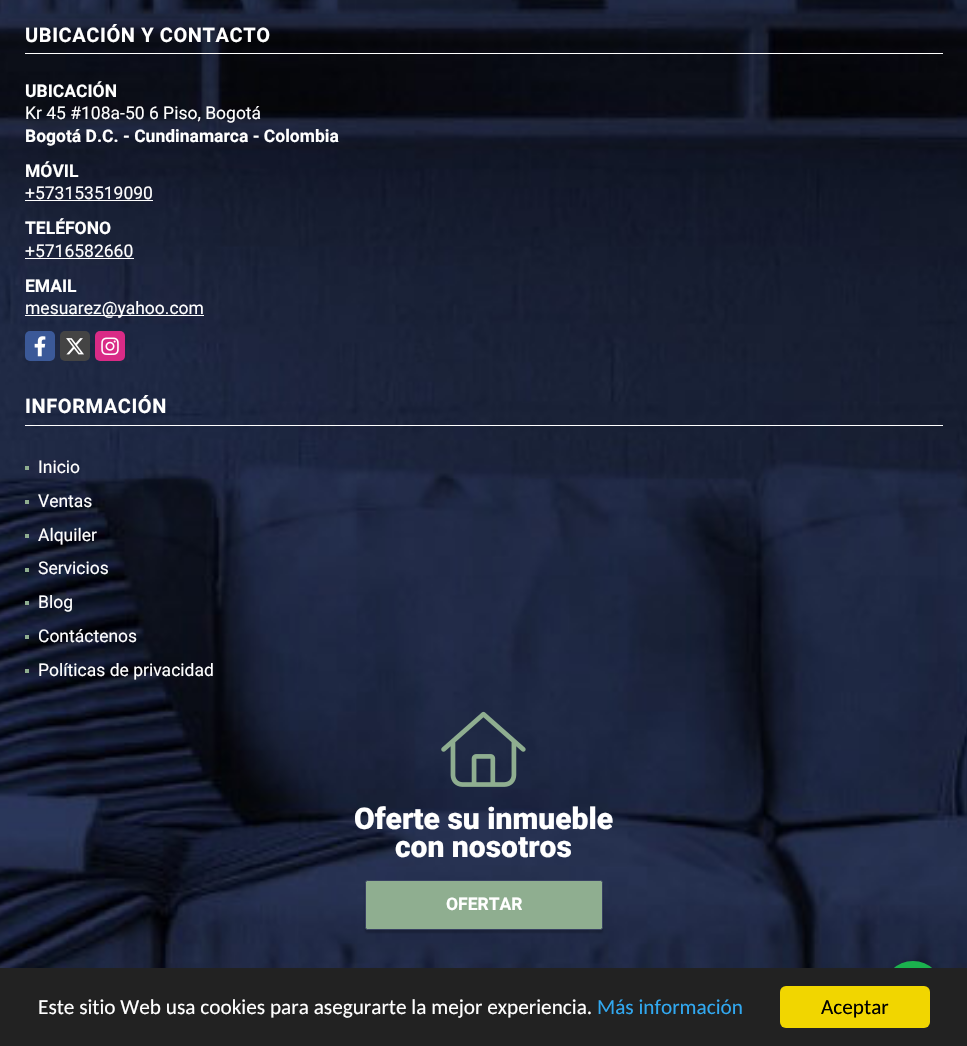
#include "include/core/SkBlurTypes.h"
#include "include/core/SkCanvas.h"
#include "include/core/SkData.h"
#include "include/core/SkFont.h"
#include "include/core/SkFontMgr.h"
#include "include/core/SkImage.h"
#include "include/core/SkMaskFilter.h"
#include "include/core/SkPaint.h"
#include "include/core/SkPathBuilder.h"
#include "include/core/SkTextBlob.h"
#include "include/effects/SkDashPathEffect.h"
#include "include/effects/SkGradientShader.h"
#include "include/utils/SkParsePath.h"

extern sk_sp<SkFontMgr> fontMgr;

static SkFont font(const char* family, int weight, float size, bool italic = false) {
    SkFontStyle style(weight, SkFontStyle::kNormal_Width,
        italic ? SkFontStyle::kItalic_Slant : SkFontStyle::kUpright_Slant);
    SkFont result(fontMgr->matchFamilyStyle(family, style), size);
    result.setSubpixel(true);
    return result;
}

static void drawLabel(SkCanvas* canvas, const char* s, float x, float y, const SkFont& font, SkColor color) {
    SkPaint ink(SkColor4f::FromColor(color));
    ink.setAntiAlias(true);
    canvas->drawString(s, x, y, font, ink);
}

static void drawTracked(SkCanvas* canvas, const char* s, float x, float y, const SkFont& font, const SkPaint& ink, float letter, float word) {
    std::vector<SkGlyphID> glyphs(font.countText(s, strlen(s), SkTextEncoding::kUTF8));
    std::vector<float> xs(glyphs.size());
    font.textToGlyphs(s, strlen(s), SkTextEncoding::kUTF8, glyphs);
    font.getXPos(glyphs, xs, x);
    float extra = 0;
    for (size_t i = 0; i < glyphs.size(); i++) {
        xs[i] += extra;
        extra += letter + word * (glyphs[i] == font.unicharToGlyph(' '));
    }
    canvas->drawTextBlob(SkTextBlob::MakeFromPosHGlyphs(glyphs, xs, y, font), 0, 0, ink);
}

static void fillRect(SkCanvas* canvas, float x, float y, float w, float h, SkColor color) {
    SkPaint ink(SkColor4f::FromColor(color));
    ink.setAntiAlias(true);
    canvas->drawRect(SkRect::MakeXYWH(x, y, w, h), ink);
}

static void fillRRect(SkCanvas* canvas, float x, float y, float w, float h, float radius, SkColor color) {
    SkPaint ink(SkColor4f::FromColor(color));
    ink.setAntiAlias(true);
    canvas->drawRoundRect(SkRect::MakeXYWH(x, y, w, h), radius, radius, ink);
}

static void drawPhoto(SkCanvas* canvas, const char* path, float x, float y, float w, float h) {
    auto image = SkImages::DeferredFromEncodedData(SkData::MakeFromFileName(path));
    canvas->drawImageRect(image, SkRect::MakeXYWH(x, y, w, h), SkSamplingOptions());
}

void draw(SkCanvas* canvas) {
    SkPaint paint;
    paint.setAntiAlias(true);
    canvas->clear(0xFFFFFFFF);
    drawPhoto(canvas, "assets/img1.png", 0, 0, 967, 968);
    fillRect(canvas, 25, 53, 918, 1, 0xFFFFFFFF);
    SkFont font1 = font("Roboto", 700, 20);
    paint.setColor(0xFFFFFFFF);
    drawTracked(canvas, "UBICACIÓN Y CONTACTO", 25, 42, font1, paint, 0.6f, 0);
    SkFont font2 = font("Roboto", 700, 17.5f);
    drawLabel(canvas, "UBICACIÓN", 25, 97, font2, 0xFFFFFFFF);
    SkFont font3 = font("Roboto", 400, 17.5f);
    drawLabel(canvas, "Kr 45 #108a-50 6 Piso, Bogotá", 25, 119, font3, 0xFFFFFFFF);
    drawLabel(canvas, "Bogotá D.C. - Cundinamarca - Colombia", 25, 142, font2, 0xFFFFFFFF);
    drawLabel(canvas, "MÓVIL", 25, 177, font2, 0xFFFFFFFF);
    drawLabel(canvas, "+573153519090", 25, 199, font3, 0xFFFFFFFF);
    fillRect(canvas, 25, 200, 128, 1, 0xFFFFFFFF);
    drawLabel(canvas, "TELÉFONO", 25, 234, font2, 0xFFFFFFFF);
    drawLabel(canvas, "+5716582660", 25, 257, font3, 0xFFFFFFFF);
    fillRect(canvas, 25, 258, 109, 1, 0xFFFFFFFF);
    drawLabel(canvas, "EMAIL", 25, 292, font2, 0xFFFFFFFF);
    fillRect(canvas, 25, 315, 179, 1, 0xFFFFFFFF);
    drawLabel(canvas, "mesuarez@yahoo.com", 25, 314, font3, 0xFFFFFFFF);
    fillRRect(canvas, 25, 331, 30, 30, 5, 0xFF3B5998);
    drawPhoto(canvas, "assets/img2.png", 34, 336, 12, 21);
    fillRRect(canvas, 60, 331, 30, 30, 5, 0xFF444444);
    drawPhoto(canvas, "assets/img3.png", 66, 338, 18, 17);
    fillRRect(canvas, 95, 331, 30, 30, 5, 0xFFD92B86);
    drawPhoto(canvas, "assets/img4.png", 101, 337, 18, 18);
    fillRect(canvas, 25, 425, 918, 1, 0xFFFFFFFF);
    drawTracked(canvas, "INFORMACIÓN", 25, 413, font1, paint, 0.6f, 0);
    fillRect(canvas, 25, 466, 4, 4, 0xFF8FAE90);
    drawLabel(canvas, "Inicio", 38, 473, font3, 0xFFFFFFFF);
    fillRect(canvas, 25, 500, 4, 4, 0xFF8FAE90);
    drawLabel(canvas, "Ventas", 38, 507, font3, 0xFFFFFFFF);
    fillRect(canvas, 25, 534, 4, 4, 0xFF8FAE90);
    drawLabel(canvas, "Alquiler", 38, 541, font3, 0xFFFFFFFF);
    fillRect(canvas, 25, 568, 4, 4, 0xFF8FAE90);
    drawLabel(canvas, "Servicios", 38, 574, font3, 0xFFFFFFFF);
    fillRect(canvas, 25, 601, 4, 4, 0xFF8FAE90);
    drawLabel(canvas, "Blog", 38, 608, font3, 0xFFFFFFFF);
    fillRect(canvas, 25, 635, 4, 4, 0xFF8FAE90);
    drawLabel(canvas, "Contáctenos", 38, 642, font3, 0xFFFFFFFF);
    fillRect(canvas, 25, 669, 4, 4, 0xFF8FAE90);
    drawLabel(canvas, "Políticas de privacidad", 38, 676, font3, 0xFFFFFFFF);
    drawPhoto(canvas, "assets/img5.png", 441, 711, 85, 76);
    SkFont font4 = font("Roboto", 900, 30);
    drawLabel(canvas, "Oferte su inmueble", 354, 829, font4, 0xFFFFFFFF);
    drawLabel(canvas, "con nosotros", 395, 857, font4, 0xFFFFFFFF);
    paint.setColor(0x33000000);
    paint.setMaskFilter(SkMaskFilter::MakeBlur(kNormal_SkBlurStyle, 1));
    canvas->drawRoundRect(SkRect::MakeXYWH(365, 883, 238, 50), 2.5f, 2.5f, paint);
    paint.setMaskFilter(nullptr);
    paint.setColor(0xFF8FAE90);
    canvas->drawRoundRect(SkRect::MakeXYWH(365.5f, 880.5f, 237, 49), 2, 2, paint);
    paint.setStroke(true);
    paint.setStrokeWidth(1);
    paint.setColor(0xFF384161);
    canvas->drawRoundRect(SkRect::MakeXYWH(365.5f, 880.5f, 237, 49), 2, 2, paint);
    drawLabel(canvas, "OFERTAR", 446, 910, font2, 0xFFFFFFFF);
    paint.setStroke(false);
    paint.setColor(0x33000000);
    paint.setMaskFilter(SkMaskFilter::MakeBlur(kNormal_SkBlurStyle, 4));
    canvas->drawRoundRect(SkRect::MakeXYWH(883, 961, 60, 60), 30, 30, paint);
    paint.setMaskFilter(nullptr);
    paint.setColor(0xFF1BB24E);
    canvas->drawCircle(913, 991, 30, paint);
    fillRect(canvas, 0, 968, 967, 78, 0xFF222222);
    SkFont font5 = font("Carlito", 400, 21.25f);
    drawLabel(canvas, "Este sitio Web usa cookies para asegurarte la mejor experiencia.", 38, 1014, font5, 0xFFFFFFFF);
    drawLabel(canvas, "Más información", 597, 1014, font5, 0xFF31A8F0);
    fillRRect(canvas, 780, 986, 150, 42, 6, 0xFFF1D600);
    drawLabel(canvas, "Aceptar", 821, 1014, font5, 0xFF000000);
}
